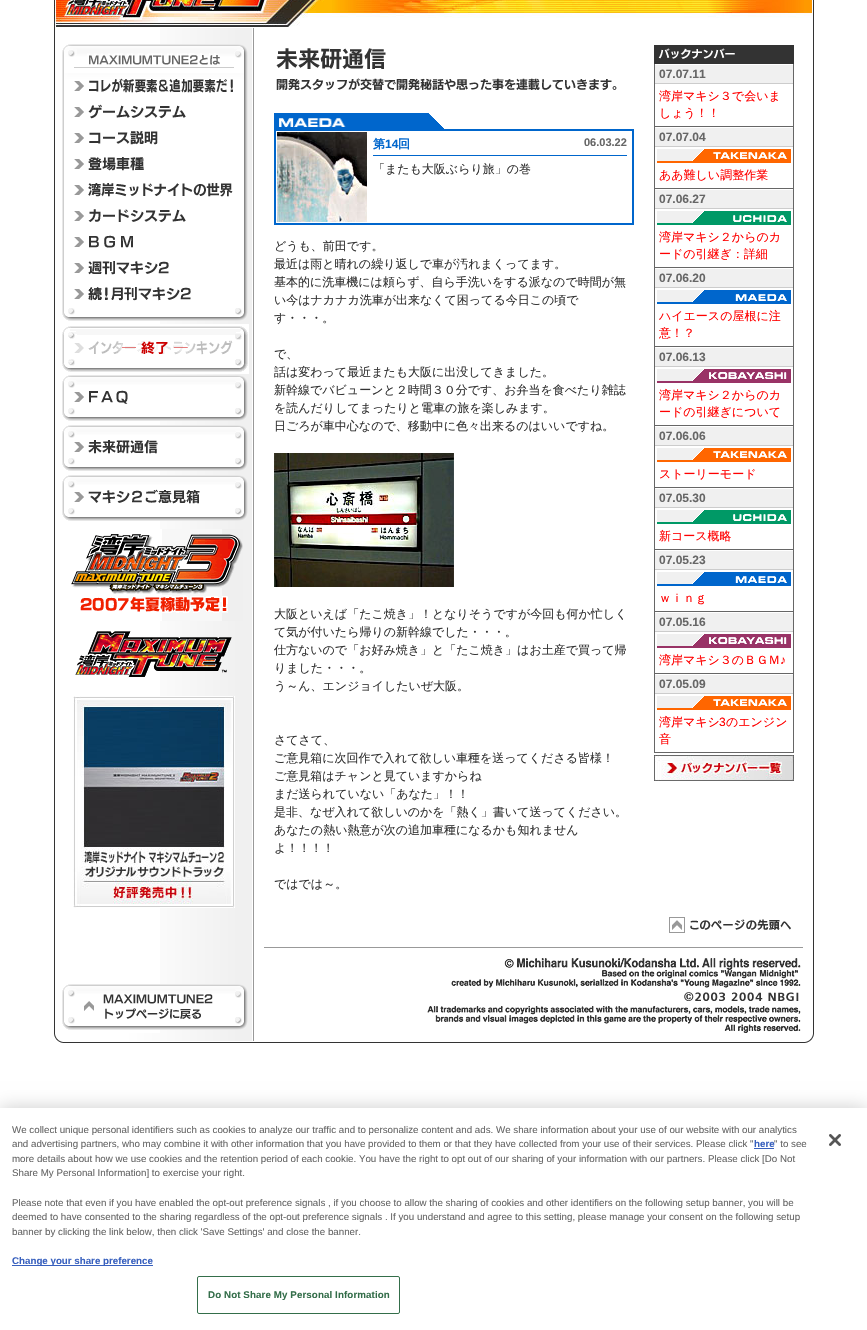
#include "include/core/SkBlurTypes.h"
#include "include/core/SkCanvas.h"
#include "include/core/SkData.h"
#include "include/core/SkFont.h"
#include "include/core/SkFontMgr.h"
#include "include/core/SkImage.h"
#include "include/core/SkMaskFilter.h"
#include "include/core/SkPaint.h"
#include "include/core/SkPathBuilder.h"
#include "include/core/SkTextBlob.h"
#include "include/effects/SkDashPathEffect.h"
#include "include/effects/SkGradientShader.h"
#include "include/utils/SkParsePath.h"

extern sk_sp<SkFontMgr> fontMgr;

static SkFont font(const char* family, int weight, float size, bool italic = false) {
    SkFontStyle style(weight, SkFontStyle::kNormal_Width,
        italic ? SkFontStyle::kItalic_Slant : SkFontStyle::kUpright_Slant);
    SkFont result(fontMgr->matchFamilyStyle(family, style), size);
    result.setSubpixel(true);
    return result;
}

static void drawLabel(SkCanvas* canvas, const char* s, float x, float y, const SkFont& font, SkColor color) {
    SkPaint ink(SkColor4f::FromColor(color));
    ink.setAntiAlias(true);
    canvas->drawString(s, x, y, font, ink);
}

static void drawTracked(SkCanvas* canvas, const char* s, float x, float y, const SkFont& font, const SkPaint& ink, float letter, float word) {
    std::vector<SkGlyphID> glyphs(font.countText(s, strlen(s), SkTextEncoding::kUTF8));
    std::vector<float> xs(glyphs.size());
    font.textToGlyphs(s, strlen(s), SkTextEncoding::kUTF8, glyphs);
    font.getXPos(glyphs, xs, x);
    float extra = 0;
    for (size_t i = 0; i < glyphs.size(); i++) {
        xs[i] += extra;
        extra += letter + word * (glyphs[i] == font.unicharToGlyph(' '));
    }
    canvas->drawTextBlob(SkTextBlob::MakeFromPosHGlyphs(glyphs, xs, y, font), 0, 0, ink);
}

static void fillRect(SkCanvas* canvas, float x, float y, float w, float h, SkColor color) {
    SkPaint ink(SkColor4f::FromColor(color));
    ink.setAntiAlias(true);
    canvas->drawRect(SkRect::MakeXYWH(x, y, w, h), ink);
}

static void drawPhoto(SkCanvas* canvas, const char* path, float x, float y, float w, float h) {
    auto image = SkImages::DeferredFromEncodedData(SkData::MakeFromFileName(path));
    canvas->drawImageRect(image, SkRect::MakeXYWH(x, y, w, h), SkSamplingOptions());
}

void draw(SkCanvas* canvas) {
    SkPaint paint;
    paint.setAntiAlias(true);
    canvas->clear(0xFFFFFFFF);
    drawPhoto(canvas, "assets/img1.png", 54, 0, 230, 27);
    fillRect(canvas, 813, 0, 1, 1033, 0xFF333333);
    drawPhoto(canvas, "assets/img2.png", 284, 0, 528, 27);
    fillRect(canvas, 54, 27, 1, 1006, 0xFF333333);
    drawPhoto(canvas, "assets/img3.png", 160, 28, 94, 919);
    drawPhoto(canvas, "assets/img4.png", 62, 44, 186, 29);
    drawPhoto(canvas, "assets/img5.png", 62, 73, 186, 26);
    drawPhoto(canvas, "assets/img6.png", 62, 99, 186, 26);
    drawPhoto(canvas, "assets/img7.png", 62, 125, 186, 26);
    drawPhoto(canvas, "assets/img8.png", 62, 151, 186, 26);
    drawPhoto(canvas, "assets/img9.png", 62, 177, 186, 26);
    drawPhoto(canvas, "assets/img10.png", 62, 203, 186, 26);
    drawPhoto(canvas, "assets/img11.png", 62, 229, 186, 26);
    drawPhoto(canvas, "assets/img12.png", 62, 255, 186, 26);
    drawPhoto(canvas, "assets/img13.png", 62, 281, 186, 26);
    drawPhoto(canvas, "assets/img14.png", 62, 307, 186, 14);
    drawPhoto(canvas, "assets/img15.png", 62, 324, 187, 50);
    drawPhoto(canvas, "assets/img16.png", 62, 375, 186, 46);
    drawPhoto(canvas, "assets/img17.png", 62, 425, 186, 46);
    drawPhoto(canvas, "assets/img18.png", 62, 475, 186, 46);
    drawPhoto(canvas, "assets/img19.png", 71, 529, 172, 92);
    drawPhoto(canvas, "assets/img20.png", 75, 631, 157, 47);
    drawPhoto(canvas, "assets/img21.png", 73, 696, 162, 212);
    drawPhoto(canvas, "assets/img22.png", 276, 48, 341, 43);
    drawPhoto(canvas, "assets/img23.png", 274, 113, 170, 16);
    paint.setStroke(true);
    paint.setStrokeWidth(2);
    paint.setColor(0xFF0066CC);
    canvas->drawRect(SkRect::MakeXYWH(275, 130, 358, 94), paint);
    drawPhoto(canvas, "assets/img24.png", 277, 132, 90, 90);
    fillRect(canvas, 373, 155, 254, 1, 0xFF0066CC);
    SkFont font1 = font("WenQuanYi Zen Hei", 700, 12);
    drawLabel(canvas, "第", 373, 148, font1, 0xFF0066CC);
    SkFont font2 = font("Liberation Sans", 700, 12);
    drawLabel(canvas, "14", 385, 148, font2, 0xFF0066CC);
    drawLabel(canvas, "回", 398, 148, font1, 0xFF0066CC);
    SkFont font3 = font("Liberation Sans", 700, 11);
    drawLabel(canvas, "06.03.22", 584, 146, font3, 0xFF666666);
    SkFont font4 = font("WenQuanYi Zen Hei", 500, 12);
    drawLabel(canvas, "「またも大阪ぶらり旅」の巻", 373, 173, font4, 0xFF333333);
    drawLabel(canvas, "どうも、前田です。", 274, 250, font4, 0xFF333333);
    drawLabel(canvas, "最近は雨と晴れの繰り返しで車が汚れまくってます。", 274, 268, font4, 0xFF333333);
    drawLabel(canvas, "基本的に洗車機には頼らず、自ら手洗いをする派なので時間が無", 274, 286, font4, 0xFF333333);
    drawLabel(canvas, "い今はナカナカ洗車が出来なくて困ってる今日この頃で", 274, 304, font4, 0xFF333333);
    drawLabel(canvas, "す・・・。", 274, 322, font4, 0xFF333333);
    drawLabel(canvas, "で、", 274, 358, font4, 0xFF333333);
    drawLabel(canvas, "話は変わって最近またも大阪に出没してきました。", 274, 376, font4, 0xFF333333);
    drawLabel(canvas, "新幹線でバビューンと２時間３０分です、お弁当を食べたり雑誌", 274, 394, font4, 0xFF333333);
    drawLabel(canvas, "を読んだりしてまったりと電車の旅を楽しみます。", 274, 412, font4, 0xFF333333);
    drawLabel(canvas, "日ごろが車中心なので、移動中に色々出来るのはいいですね。", 274, 430, font4, 0xFF333333);
    drawPhoto(canvas, "assets/img25.png", 274, 453, 180, 134);
    drawLabel(canvas, "大阪といえば「たこ焼き」！となりそうですが今回も何か忙しく", 274, 618, font4, 0xFF333333);
    drawLabel(canvas, "て気が付いたら帰りの新幹線でした・・・。", 274, 636, font4, 0xFF333333);
    drawLabel(canvas, "仕方ないので「お好み焼き」と「たこ焼き」はお土産で買って帰", 274, 654, font4, 0xFF333333);
    drawLabel(canvas, "りました・・・。", 274, 672, font4, 0xFF333333);
    drawLabel(canvas, "う～ん、エンジョイしたいぜ大阪。", 274, 690, font4, 0xFF333333);
    drawLabel(canvas, "さてさて、", 274, 744, font4, 0xFF333333);
    drawLabel(canvas, "ご意見箱に次回作で入れて欲しい車種を送ってくださる皆様！", 274, 762, font4, 0xFF333333);
    drawLabel(canvas, "ご意見箱はチャンと見ていますからね", 274, 780, font4, 0xFF333333);
    drawLabel(canvas, "まだ送られていない「あなた」！！", 274, 798, font4, 0xFF333333);
    drawLabel(canvas, "是非、なぜ入れて欲しいのかを「熱く」書いて送ってください。", 274, 816, font4, 0xFF333333);
    drawLabel(canvas, "あなたの熱い熱意が次の追加車種になるかも知れません", 274, 834, font4, 0xFF333333);
    drawLabel(canvas, "よ！！！！", 274, 852, font4, 0xFF333333);
    drawLabel(canvas, "ではでは～。", 274, 888, font4, 0xFF333333);
    drawPhoto(canvas, "assets/img26.png", 654, 45, 140, 19);
    fillRect(canvas, 793, 64, 1, 689, 0xFF666666);
    fillRect(canvas, 654, 126, 140, 1, 0xFF666666);
    fillRect(canvas, 654, 64, 1, 63, 0xFF666666);
    fillRect(canvas, 655, 65, 138, 18, 0xFFF0F0F0);
    fillRect(canvas, 655, 83, 138, 1, 0xFFCCCCCC);
    drawLabel(canvas, "07.07.11", 659, 78, font2, 0xFF666666);
    drawLabel(canvas, "湾岸マキシ３で会いま", 659, 100, font4, 0xFFFF0000);
    drawLabel(canvas, "しょう！！", 659, 117, font4, 0xFFFF0000);
    fillRect(canvas, 654, 188, 140, 1, 0xFF666666);
    fillRect(canvas, 654, 127, 1, 62, 0xFF666666);
    fillRect(canvas, 655, 128, 138, 18, 0xFFF0F0F0);
    fillRect(canvas, 655, 146, 138, 1, 0xFFCCCCCC);
    drawLabel(canvas, "07.07.04", 659, 141, font2, 0xFF666666);
    drawPhoto(canvas, "assets/img27.png", 657, 149, 134, 14);
    drawLabel(canvas, "ああ難しい調整作業", 659, 179, font4, 0xFFFF0000);
    fillRect(canvas, 654, 267, 140, 1, 0xFF666666);
    fillRect(canvas, 654, 189, 1, 79, 0xFF666666);
    fillRect(canvas, 655, 190, 138, 18, 0xFFF0F0F0);
    fillRect(canvas, 655, 208, 138, 1, 0xFFCCCCCC);
    drawLabel(canvas, "07.06.27", 659, 203, font2, 0xFF666666);
    drawPhoto(canvas, "assets/img28.png", 657, 211, 134, 14);
    drawLabel(canvas, "湾岸マキシ２からのカ", 659, 241, font4, 0xFFFF0000);
    drawLabel(canvas, "ードの引継ぎ：詳細", 659, 258, font4, 0xFFFF0000);
    fillRect(canvas, 654, 346, 140, 1, 0xFF666666);
    fillRect(canvas, 654, 268, 1, 79, 0xFF666666);
    fillRect(canvas, 655, 269, 138, 18, 0xFFF0F0F0);
    fillRect(canvas, 655, 287, 138, 1, 0xFFCCCCCC);
    drawLabel(canvas, "07.06.20", 659, 282, font2, 0xFF666666);
    drawPhoto(canvas, "assets/img29.png", 657, 290, 134, 14);
    drawLabel(canvas, "ハイエースの屋根に注", 659, 320, font4, 0xFFFF0000);
    drawLabel(canvas, "意！？", 659, 337, font4, 0xFFFF0000);
    fillRect(canvas, 654, 425, 140, 1, 0xFF666666);
    fillRect(canvas, 654, 347, 1, 79, 0xFF666666);
    fillRect(canvas, 655, 348, 138, 18, 0xFFF0F0F0);
    fillRect(canvas, 655, 366, 138, 1, 0xFFCCCCCC);
    drawLabel(canvas, "07.06.13", 659, 361, font2, 0xFF666666);
    drawPhoto(canvas, "assets/img30.png", 657, 369, 134, 14);
    drawLabel(canvas, "湾岸マキシ２からのカ", 659, 399, font4, 0xFFFF0000);
    drawLabel(canvas, "ードの引継ぎについて", 659, 416, font4, 0xFFFF0000);
    fillRect(canvas, 654, 487, 140, 1, 0xFF666666);
    fillRect(canvas, 654, 426, 1, 62, 0xFF666666);
    fillRect(canvas, 655, 427, 138, 18, 0xFFF0F0F0);
    fillRect(canvas, 655, 445, 138, 1, 0xFFCCCCCC);
    drawLabel(canvas, "07.06.06", 659, 440, font2, 0xFF666666);
    drawPhoto(canvas, "assets/img27.png", 657, 448, 134, 14);
    drawLabel(canvas, "ストーリーモード", 659, 478, font4, 0xFFFF0000);
    fillRect(canvas, 654, 549, 140, 1, 0xFF666666);
    fillRect(canvas, 654, 488, 1, 62, 0xFF666666);
    fillRect(canvas, 655, 489, 138, 18, 0xFFF0F0F0);
    fillRect(canvas, 655, 507, 138, 1, 0xFFCCCCCC);
    drawLabel(canvas, "07.05.30", 659, 502, font2, 0xFF666666);
    drawPhoto(canvas, "assets/img28.png", 657, 510, 134, 14);
    drawLabel(canvas, "新コース概略", 659, 540, font4, 0xFFFF0000);
    fillRect(canvas, 654, 611, 140, 1, 0xFF666666);
    fillRect(canvas, 654, 550, 1, 62, 0xFF666666);
    fillRect(canvas, 655, 551, 138, 18, 0xFFF0F0F0);
    fillRect(canvas, 655, 569, 138, 1, 0xFFCCCCCC);
    drawLabel(canvas, "07.05.23", 659, 564, font2, 0xFF666666);
    drawPhoto(canvas, "assets/img29.png", 657, 572, 134, 14);
    drawLabel(canvas, "ｗｉｎｇ", 659, 602, font4, 0xFFFF0000);
    fillRect(canvas, 654, 673, 140, 1, 0xFF666666);
    fillRect(canvas, 654, 612, 1, 62, 0xFF666666);
    fillRect(canvas, 655, 613, 138, 18, 0xFFF0F0F0);
    fillRect(canvas, 655, 631, 138, 1, 0xFFCCCCCC);
    drawLabel(canvas, "07.05.16", 659, 626, font2, 0xFF666666);
    drawPhoto(canvas, "assets/img30.png", 657, 634, 134, 14);
    drawLabel(canvas, "湾岸マキシ３のＢＧＭ", 659, 664, font4, 0xFFFF0000);
    SkFont font5 = font("Liberation Sans", 400, 12);
    drawLabel(canvas, "♪", 780, 664, font5, 0xFFFF0000);
    fillRect(canvas, 654, 752, 140, 1, 0xFF666666);
    fillRect(canvas, 654, 674, 1, 79, 0xFF666666);
    fillRect(canvas, 655, 675, 138, 18, 0xFFF0F0F0);
    fillRect(canvas, 655, 693, 138, 1, 0xFFCCCCCC);
    drawLabel(canvas, "07.05.09", 659, 688, font2, 0xFF666666);
    drawPhoto(canvas, "assets/img27.png", 657, 696, 134, 14);
    drawLabel(canvas, "湾岸マキシ", 659, 726, font4, 0xFFFF0000);
    drawLabel(canvas, "3", 719, 726, font5, 0xFFFF0000);
    drawLabel(canvas, "のエンジン", 726, 726, font4, 0xFFFF0000);
    drawLabel(canvas, "音", 659, 743, font4, 0xFFFF0000);
    drawPhoto(canvas, "assets/img31.png", 654, 755, 140, 26);
    drawPhoto(canvas, "assets/img32.png", 669, 917, 122, 16);
    drawPhoto(canvas, "assets/img33.png", 160, 947, 94, 86);
    drawPhoto(canvas, "assets/img34.png", 62, 984, 186, 46);
    fillRect(canvas, 264, 947, 539, 1, 0xFF999999);
    drawPhoto(canvas, "assets/img35.png", 427, 958, 374, 75);
    drawPhoto(canvas, "assets/img36.png", 54, 1033, 760, 10);
    paint.setStroke(false);
    paint.setColor(0x33000000);
    paint.setMaskFilter(SkMaskFilter::MakeBlur(kNormal_SkBlurStyle, 9));
    canvas->drawRect(SkRect::MakeXYWH(0, 1108, 867, 222), paint);
    paint.setMaskFilter(nullptr);
    fillRect(canvas, 0, 1108, 867, 222, 0xFFFFFFFF);
    SkFont font6 = font("Liberation Sans", 400, 9.75f);
    drawLabel(canvas, "We collect unique personal identifiers such as cookies to analyze our traffic and to personalize content and ads. We share information about your use of our website with our analytics", 12, 1133, font6, 0xFF666666);
    drawLabel(canvas, "and advertising partners, who may combine it with other information that you have provided to them or that they have collected from your use of their services. Please click \"", 12, 1147, font6, 0xFF666666);
    SkFont font7 = font("Liberation Sans", 700, 9.75f);
    drawLabel(canvas, "here", 754, 1147, font7, 0xFF3860BE);
    fillRect(canvas, 754, 1148, 20, 1, 0xFF3860BE);
    drawLabel(canvas, "\" to see", 774, 1147, font6, 0xFF666666);
    drawLabel(canvas, "more details about how we use cookies and the retention period of each cookie. You have the right to opt out of our sharing of your information with our partners. Please click [Do Not", 12, 1162, font6, 0xFF666666);
    drawLabel(canvas, "Share My Personal Information] to exercise your right.", 12, 1176, font6, 0xFF666666);
    drawLabel(canvas, "Please note that even if you have enabled the opt-out preference signals , if you choose to allow the sharing of cookies and other identifiers on the following setup banner, you will be", 12, 1206, font6, 0xFF666666);
    drawLabel(canvas, "deemed to have consented to the sharing regardless of the opt-out preference signals . If you understand and agree to this setting, please manage your consent on the following setup", 12, 1220, font6, 0xFF666666);
    drawLabel(canvas, "banner by clicking the link below, then click 'Save Settings' and close the banner.", 12, 1235, font6, 0xFF666666);
    fillRect(canvas, 12, 1265, 141, 1, 0xFF3860BE);
    drawLabel(canvas, "Change your share preference", 12, 1264, font7, 0xFF3860BE);
    paint.setStroke(true);
    paint.setStrokeWidth(1);
    paint.setColor(0xFF346E4A);
    canvas->drawRoundRect(SkRect::MakeXYWH(197.5f, 1276.5f, 202, 37), 1.5f, 1.5f, paint);
    paint.setStroke(false);
    drawTracked(canvas, "Do Not Share My Personal Information", 208, 1298, font7, paint, 0.1f, 0);
    drawPhoto(canvas, "assets/img37.png", 829, 1134, 12, 12);
}
